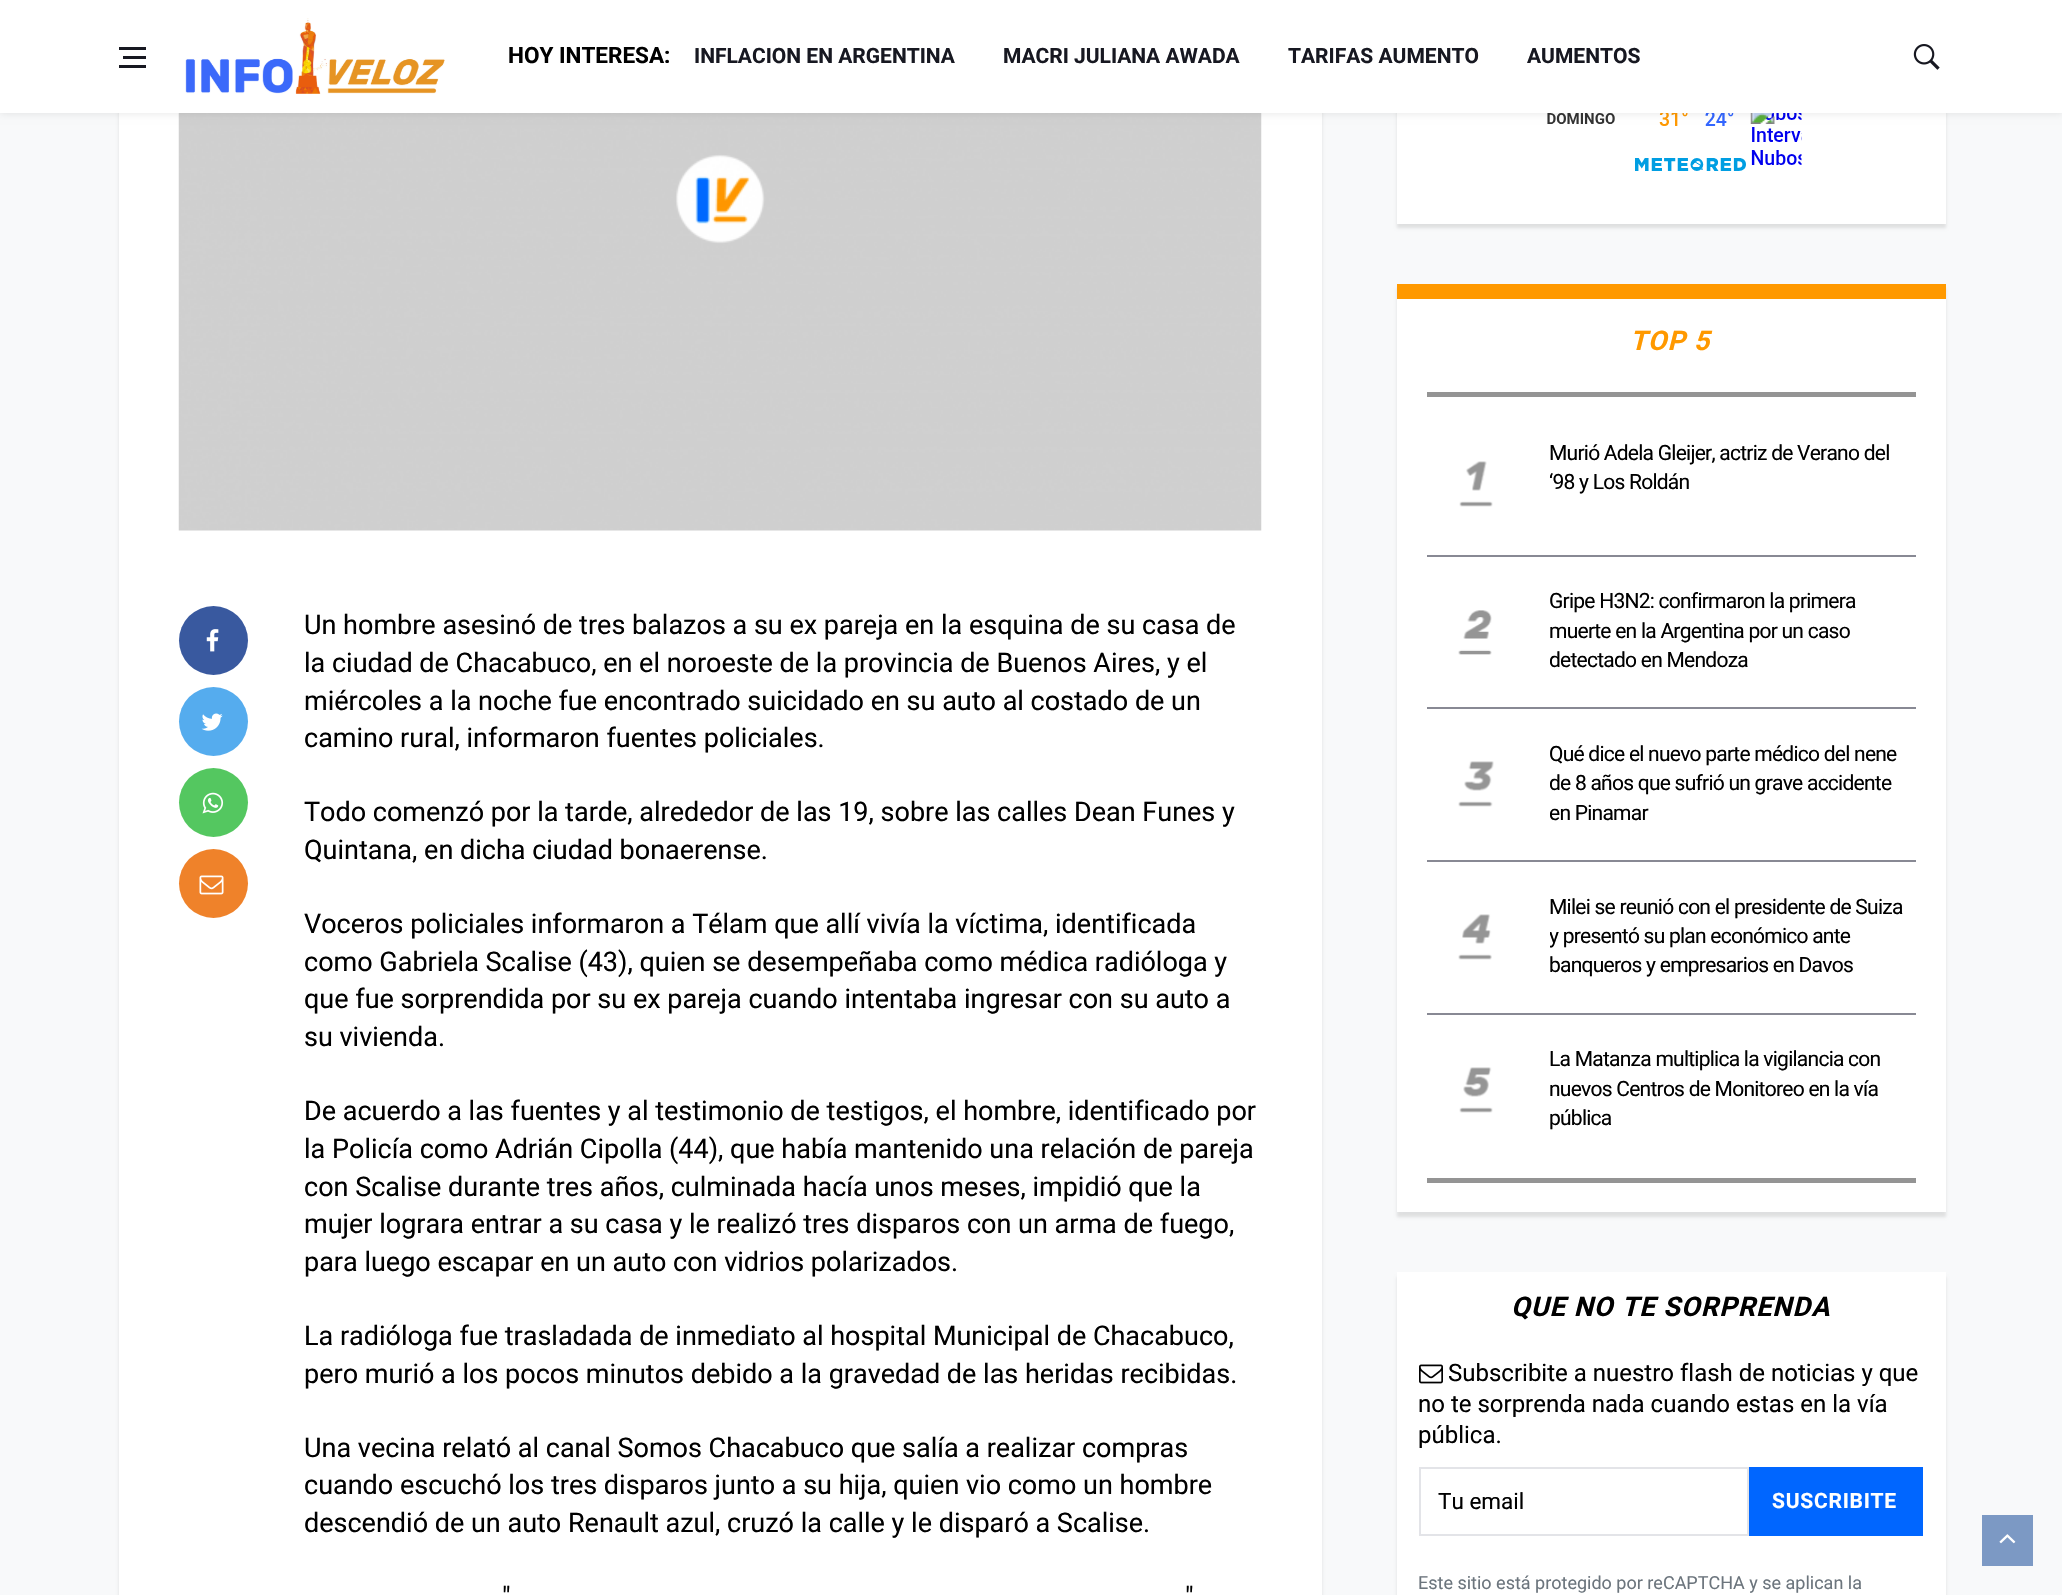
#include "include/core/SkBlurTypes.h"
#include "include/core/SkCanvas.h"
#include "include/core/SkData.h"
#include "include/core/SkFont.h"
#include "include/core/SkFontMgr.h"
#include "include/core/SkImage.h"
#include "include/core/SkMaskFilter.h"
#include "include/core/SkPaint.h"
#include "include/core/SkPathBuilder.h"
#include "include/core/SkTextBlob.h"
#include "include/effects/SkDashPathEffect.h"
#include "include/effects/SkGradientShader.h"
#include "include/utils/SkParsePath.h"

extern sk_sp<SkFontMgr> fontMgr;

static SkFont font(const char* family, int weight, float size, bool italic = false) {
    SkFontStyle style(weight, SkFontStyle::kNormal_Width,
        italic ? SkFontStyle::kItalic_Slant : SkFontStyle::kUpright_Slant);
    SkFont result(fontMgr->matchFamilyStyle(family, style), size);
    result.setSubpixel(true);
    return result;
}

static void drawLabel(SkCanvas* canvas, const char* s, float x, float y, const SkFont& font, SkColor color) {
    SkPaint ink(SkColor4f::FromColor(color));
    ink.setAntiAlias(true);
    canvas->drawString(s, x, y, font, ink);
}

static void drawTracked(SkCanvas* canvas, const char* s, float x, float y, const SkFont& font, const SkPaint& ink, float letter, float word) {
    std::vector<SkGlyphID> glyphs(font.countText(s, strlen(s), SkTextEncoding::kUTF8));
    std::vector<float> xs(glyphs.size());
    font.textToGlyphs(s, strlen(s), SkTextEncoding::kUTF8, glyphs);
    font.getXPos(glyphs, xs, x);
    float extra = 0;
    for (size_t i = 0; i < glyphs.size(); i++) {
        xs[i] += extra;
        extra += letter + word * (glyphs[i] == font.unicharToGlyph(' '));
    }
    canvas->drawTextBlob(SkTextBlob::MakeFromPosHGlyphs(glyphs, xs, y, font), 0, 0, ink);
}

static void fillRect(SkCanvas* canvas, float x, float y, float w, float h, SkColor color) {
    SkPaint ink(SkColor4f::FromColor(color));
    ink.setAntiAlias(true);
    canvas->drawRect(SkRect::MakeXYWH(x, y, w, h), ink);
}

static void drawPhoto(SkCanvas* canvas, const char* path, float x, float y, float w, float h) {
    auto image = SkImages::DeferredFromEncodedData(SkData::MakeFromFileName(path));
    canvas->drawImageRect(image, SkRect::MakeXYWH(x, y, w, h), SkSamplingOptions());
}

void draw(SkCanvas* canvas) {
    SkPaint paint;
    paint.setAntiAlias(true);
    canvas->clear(0xFFF8F9FA);
    paint.setColor(0x1A000000);
    paint.setMaskFilter(SkMaskFilter::MakeBlur(kNormal_SkBlurStyle, 1.5f));
    canvas->drawRect(SkRect::MakeXYWH(119, -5, 1203, 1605), paint);
    paint.setMaskFilter(nullptr);
    fillRect(canvas, 119, 113, 1203, 1482, 0xFFFFFFFF);
    drawPhoto(canvas, "assets/img3.png", 178, 113, 1084, 418);
    paint.setMaskFilter(SkMaskFilter::MakeBlur(kNormal_SkBlurStyle, 1.5f));
    canvas->drawRect(SkRect::MakeXYWH(1397, -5, 549, 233), paint);
    paint.setMaskFilter(nullptr);
    fillRect(canvas, 1397, 113, 549, 111, 0xFFFFFFFF);
    drawPhoto(canvas, "assets/img8.png", 1547, 113, 255, 58);
    paint.setMaskFilter(SkMaskFilter::MakeBlur(kNormal_SkBlurStyle, 4));
    canvas->drawRect(SkRect::MakeXYWH(0, 0, 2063, 113), paint);
    paint.setMaskFilter(nullptr);
    fillRect(canvas, 0, 0, 2062, 113, 0xFFFFFFFF);
    fillRect(canvas, 123, 56, 23, 3, 0xFF171821);
    fillRect(canvas, 119, 47, 27, 3, 0xFF171821);
    fillRect(canvas, 119, 65, 27, 3, 0xFF171821);
    drawPhoto(canvas, "assets/img1.png", 185, 18, 260, 76);
    SkFont font1 = font("Roboto", 700, 22.5f);
    drawLabel(canvas, "HOY INTERESA:", 508, 63, font1, 0xFF000000);
    SkFont font2 = font("Roboto", 700, 21);
    drawLabel(canvas, "INFLACION EN ARGENTINA", 694, 63, font2, 0xFF171821);
    drawLabel(canvas, "MACRI JULIANA AWADA", 1003, 63, font2, 0xFF171821);
    drawLabel(canvas, "TARIFAS AUMENTO", 1288, 63, font2, 0xFF171821);
    drawLabel(canvas, "AUMENTOS", 1527, 63, font2, 0xFF171821);
    drawPhoto(canvas, "assets/img2.png", 1913, 44, 27, 26);
    paint.setColor(0xFF39599F);
    canvas->drawCircle(213.5f, 640.5f, 34.5f, paint);
    drawPhoto(canvas, "assets/img4.png", 206, 629, 13, 23);
    paint.setColor(0xFF55ACEE);
    canvas->drawCircle(213.5f, 721.5f, 34.5f, paint);
    drawPhoto(canvas, "assets/img5.png", 201, 713, 22, 18);
    paint.setColor(0xFF54C760);
    canvas->drawCircle(213.5f, 802.5f, 34.5f, paint);
    drawPhoto(canvas, "assets/img6.png", 202, 792, 22, 22);
    paint.setColor(0xFFEF822A);
    canvas->drawCircle(213.5f, 883.5f, 34.5f, paint);
    drawPhoto(canvas, "assets/img7.png", 199, 875, 25, 20);
    SkFont font3 = font("Roboto", 400, 27);
    drawLabel(canvas, "Un hombre asesinó de tres balazos a su ex pareja en la esquina de su casa de", 304, 634, font3, 0xFF000000);
    drawLabel(canvas, "la ciudad de Chacabuco, en el noroeste de la provincia de Buenos Aires, y el", 304, 672, font3, 0xFF000000);
    drawLabel(canvas, "miércoles a la noche fue encontrado suicidado en su auto al costado de un", 304, 710, font3, 0xFF000000);
    drawLabel(canvas, "camino rural, informaron fuentes policiales.", 304, 747, font3, 0xFF000000);
    drawLabel(canvas, "Todo comenzó por la tarde, alrededor de las 19, sobre las calles Dean Funes y", 304, 821, font3, 0xFF000000);
    drawLabel(canvas, "Quintana, en dicha ciudad bonaerense.", 304, 859, font3, 0xFF000000);
    drawLabel(canvas, "Voceros policiales informaron a Télam que allí vivía la víctima, identificada", 304, 933, font3, 0xFF000000);
    drawLabel(canvas, "como Gabriela Scalise (43), quien se desempeñaba como médica radióloga y", 304, 971, font3, 0xFF000000);
    drawLabel(canvas, "que fue sorprendida por su ex pareja cuando intentaba ingresar con su auto a", 304, 1008, font3, 0xFF000000);
    drawLabel(canvas, "su vivienda.", 304, 1046, font3, 0xFF000000);
    drawLabel(canvas, "De acuerdo a las fuentes y al testimonio de testigos, el hombre, identificado por", 304, 1120, font3, 0xFF000000);
    drawLabel(canvas, "la Policía como Adrián Cipolla (44), que había mantenido una relación de pareja", 304, 1158, font3, 0xFF000000);
    drawLabel(canvas, "con Scalise durante tres años, culminada hacía unos meses, impidió que la", 304, 1196, font3, 0xFF000000);
    drawLabel(canvas, "mujer lograra entrar a su casa y le realizó tres disparos con un arma de fuego,", 304, 1233, font3, 0xFF000000);
    drawLabel(canvas, "para luego escapar en un auto con vidrios polarizados.", 304, 1271, font3, 0xFF000000);
    drawLabel(canvas, "La radióloga fue trasladada de inmediato al hospital Municipal de Chacabuco,", 304, 1345, font3, 0xFF000000);
    drawLabel(canvas, "pero murió a los pocos minutos debido a la gravedad de las heridas recibidas.", 304, 1383, font3, 0xFF000000);
    drawLabel(canvas, "Una vecina relató al canal Somos Chacabuco que salía a realizar compras", 304, 1457, font3, 0xFF000000);
    drawLabel(canvas, "cuando escuchó los tres disparos junto a su hija, quien vio como un hombre", 304, 1494, font3, 0xFF000000);
    drawLabel(canvas, "descendió de un auto Renault azul, cruzó la calle y le disparó a Scalise.", 304, 1532, font3, 0xFF000000);
    drawLabel(canvas, "\"", 502, 1606, font3, 0xFF000000);
    drawLabel(canvas, "\"", 1185, 1606, font3, 0xFF000000);
    paint.setColor(0x1A000000);
    paint.setMaskFilter(SkMaskFilter::MakeBlur(kNormal_SkBlurStyle, 1.5f));
    canvas->drawRect(SkRect::MakeXYWH(1397, 288, 549, 929), paint);
    paint.setMaskFilter(nullptr);
    fillRect(canvas, 1397, 299, 549, 913, 0xFFFFFFFF);
    fillRect(canvas, 1397, 284, 549, 15, 0xFFFF9900);
    SkFont font4 = font("Roboto", 700, 27, true);
    paint.setColor(0xFFFF9900);
    drawTracked(canvas, "TOP 5", 1630, 350, font4, paint, 1.1f, 0);
    fillRect(canvas, 1427, 392, 489, 5, 0xFF949494);
    fillRect(canvas, 1427, 1178, 489, 5, 0xFF949494);
    fillRect(canvas, 1427, 555, 489, 2, 0xFF888994);
    drawPhoto(canvas, "assets/img9.png", 1459, 461, 34, 46);
    SkFont font5 = font("Roboto", 400, 21);
    paint.setColor(0xFF000000);
    drawTracked(canvas, "Murió Adela Gleijer, actriz de Verano del", 1549, 460, font5, paint, -0.75f, 0);
    drawTracked(canvas, "‘98 y Los Roldán", 1549, 489, font5, paint, -0.75f, 0);
    fillRect(canvas, 1427, 707, 489, 2, 0xFF888994);
    drawPhoto(canvas, "assets/img10.png", 1458, 610, 34, 45);
    drawTracked(canvas, "Gripe H3N2: confirmaron la primera", 1549, 608, font5, paint, -0.75f, 0);
    drawTracked(canvas, "muerte en la Argentina por un caso", 1549, 638, font5, paint, -0.75f, 0);
    canvas->save();
    canvas->clipRect(SkRect::MakeXYWH(1550, 581, 366, 102));
    drawTracked(canvas, "detectado en Mendoza", 1549, 667, font5, paint, -0.75f, 0);
    canvas->restore();
    fillRect(canvas, 1427, 860, 489, 2, 0xFF888994);
    drawPhoto(canvas, "assets/img11.png", 1458, 761, 36, 46);
    canvas->save();
    canvas->clipRect(SkRect::MakeXYWH(1550, 732, 366, 104));
    drawTracked(canvas, "Qué dice el nuevo parte médico del nene", 1549, 761, font5, paint, -0.75f, 0);
    drawTracked(canvas, "de 8 años que sufrió un grave accidente", 1549, 790, font5, paint, -0.75f, 0);
    drawTracked(canvas, "en Pinamar", 1549, 820, font5, paint, -0.75f, 0);
    canvas->restore();
    fillRect(canvas, 1427, 1013, 489, 2, 0xFF888994);
    drawPhoto(canvas, "assets/img12.png", 1458, 914, 34, 46);
    drawTracked(canvas, "Milei se reunió con el presidente de Suiza", 1549, 914, font5, paint, -0.75f, 0);
    canvas->save();
    canvas->clipRect(SkRect::MakeXYWH(1550, 885, 366, 104));
    drawTracked(canvas, "y presentó su plan económico ante", 1549, 943, font5, paint, -0.75f, 0);
    canvas->restore();
    drawTracked(canvas, "banqueros y empresarios en Davos", 1549, 972, font5, paint, -0.75f, 0);
    drawPhoto(canvas, "assets/img13.png", 1459, 1067, 34, 46);
    drawTracked(canvas, "La Matanza multiplica la vigilancia con", 1549, 1066, font5, paint, -0.75f, 0);
    drawTracked(canvas, "nuevos Centros de Monitoreo en la vía", 1549, 1096, font5, paint, -0.75f, 0);
    drawTracked(canvas, "pública", 1549, 1125, font5, paint, -0.75f, 0);
    paint.setColor(0x1A000000);
    paint.setMaskFilter(SkMaskFilter::MakeBlur(kNormal_SkBlurStyle, 1.5f));
    canvas->drawRect(SkRect::MakeXYWH(1397, 1277, 549, 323), paint);
    paint.setMaskFilter(nullptr);
    fillRect(canvas, 1397, 1272, 549, 323, 0xFFFFFFFF);
    paint.setColor(0xFF000000);
    drawTracked(canvas, "QUE NO TE SORPRENDA", 1511, 1316, font4, paint, 1.1f, 0);
    drawPhoto(canvas, "assets/img14.png", 1419, 1364, 24, 20);
    SkFont font6 = font("Roboto", 400, 24);
    drawLabel(canvas, "Subscribite a nuestro flash de noticias y que", 1448, 1381, font6, 0xFF000000);
    drawLabel(canvas, "no te sorprenda nada cuando estas en la vía", 1418, 1412, font6, 0xFF000000);
    drawLabel(canvas, "pública.", 1418, 1443, font6, 0xFF000000);
    paint.setStroke(true);
    paint.setStrokeWidth(2);
    paint.setColor(0xFFE3E4E8);
    canvas->drawRect(SkRect::MakeXYWH(1420, 1468, 328, 67), paint);
    SkFont font7 = font("Roboto", 400, 22.5f);
    drawLabel(canvas, "Tu email", 1438, 1509, font7, 0xFF000000);
    fillRect(canvas, 1749, 1467, 174, 69, 0xFF0066FF);
    paint.setStroke(false);
    paint.setColor(0xFFFFFFFF);
    drawTracked(canvas, "SUSCRIBITE", 1772, 1508, font2, paint, 0.75f, 0);
    SkFont font8 = font("Roboto", 400, 18);
    drawLabel(canvas, "Este sitio está protegido por reCAPTCHA y se aplican la", 1418, 1589, font8, 0xFF6C757D);
    fillRect(canvas, 1982, 1515, 51, 51, 0xFF7C99C4);
    drawPhoto(canvas, "assets/img15.png", 1999, 1534, 17, 10);
}
